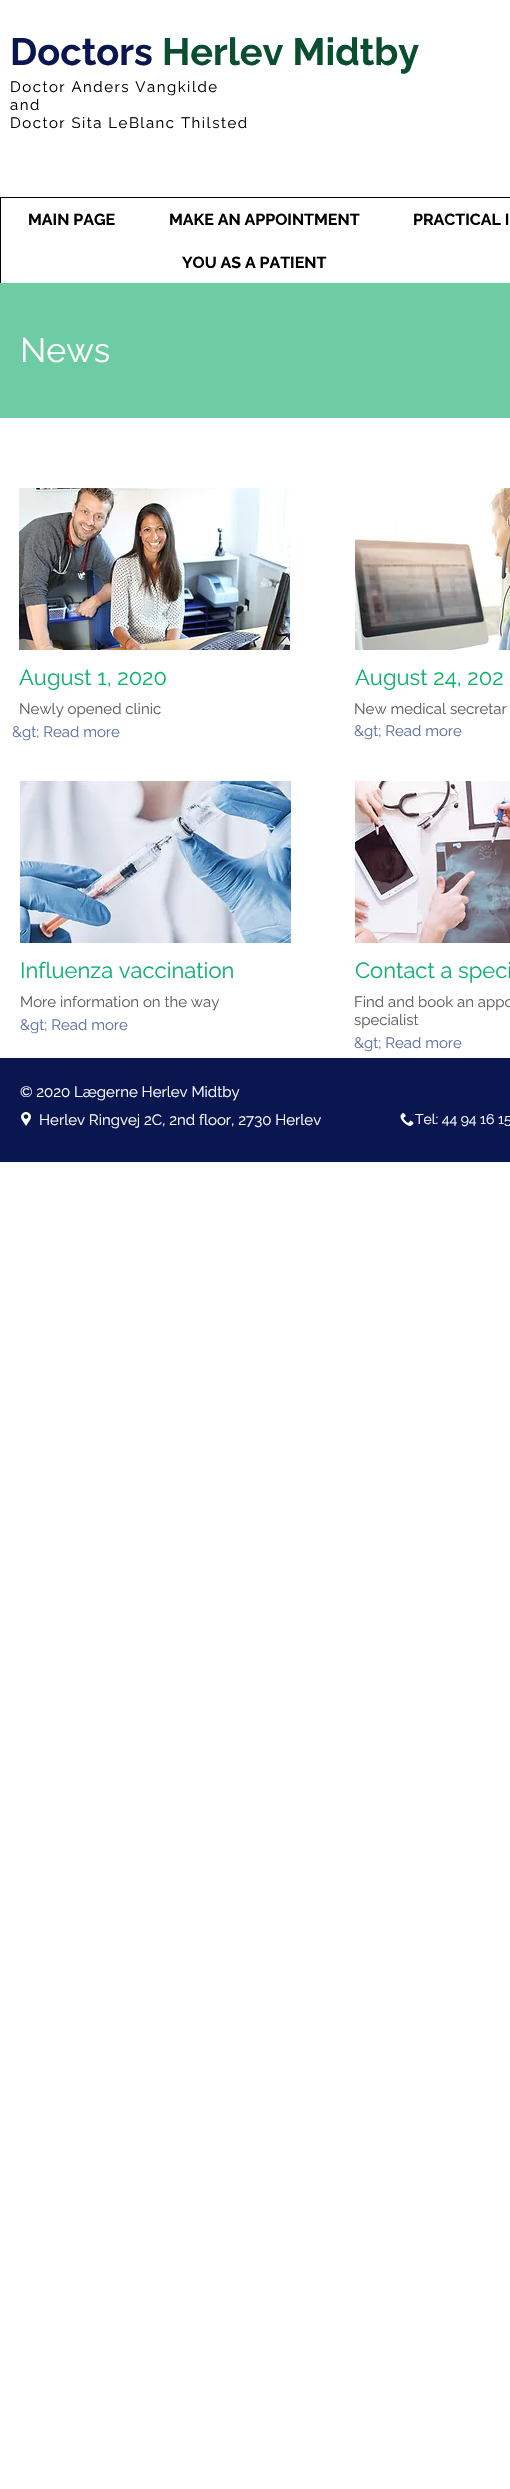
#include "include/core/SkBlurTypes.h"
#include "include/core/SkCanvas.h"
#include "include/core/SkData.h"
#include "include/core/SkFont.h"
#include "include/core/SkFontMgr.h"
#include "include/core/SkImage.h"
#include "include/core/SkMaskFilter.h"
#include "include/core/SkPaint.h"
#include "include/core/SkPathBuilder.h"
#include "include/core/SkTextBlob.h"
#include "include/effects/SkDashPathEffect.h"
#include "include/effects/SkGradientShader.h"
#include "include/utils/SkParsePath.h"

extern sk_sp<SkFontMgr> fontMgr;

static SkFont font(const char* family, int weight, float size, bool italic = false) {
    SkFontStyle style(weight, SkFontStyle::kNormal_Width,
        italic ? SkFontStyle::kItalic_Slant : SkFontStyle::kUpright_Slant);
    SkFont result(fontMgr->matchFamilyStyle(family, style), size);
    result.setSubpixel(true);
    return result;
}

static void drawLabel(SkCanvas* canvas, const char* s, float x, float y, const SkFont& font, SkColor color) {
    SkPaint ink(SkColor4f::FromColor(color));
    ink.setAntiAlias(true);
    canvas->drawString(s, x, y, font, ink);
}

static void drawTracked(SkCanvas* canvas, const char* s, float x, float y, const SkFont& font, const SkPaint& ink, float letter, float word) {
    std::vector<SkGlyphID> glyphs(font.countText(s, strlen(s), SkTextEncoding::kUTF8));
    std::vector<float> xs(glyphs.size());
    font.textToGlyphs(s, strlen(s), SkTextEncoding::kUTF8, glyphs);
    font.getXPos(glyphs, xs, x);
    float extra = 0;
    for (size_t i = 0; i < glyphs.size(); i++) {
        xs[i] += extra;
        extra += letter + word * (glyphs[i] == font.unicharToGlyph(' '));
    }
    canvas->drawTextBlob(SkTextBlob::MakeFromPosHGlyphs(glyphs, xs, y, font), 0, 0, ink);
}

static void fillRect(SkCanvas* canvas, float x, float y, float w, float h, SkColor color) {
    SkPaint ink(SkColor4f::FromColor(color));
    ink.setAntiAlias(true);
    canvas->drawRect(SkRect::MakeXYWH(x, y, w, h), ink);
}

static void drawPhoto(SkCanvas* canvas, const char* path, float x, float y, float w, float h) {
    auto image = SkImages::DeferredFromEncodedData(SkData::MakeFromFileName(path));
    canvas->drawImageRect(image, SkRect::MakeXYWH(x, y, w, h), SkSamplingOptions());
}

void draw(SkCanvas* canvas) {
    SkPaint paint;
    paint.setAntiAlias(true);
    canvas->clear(0xFFFFFFFF);
    SkFont font1 = font("Raleway", 700, 38);
    drawLabel(canvas, "Doctors", 10, 65, font1, 0xFF0A164F);
    drawLabel(canvas, "Herlev Midtby", 162, 65, font1, 0xFF0A4E30);
    SkFont font2 = font("Raleway", 400, 15);
    paint.setColor(0xFF000000);
    drawTracked(canvas, "Doctor Anders Vangkilde", 10, 92, font2, paint, 1.5f, 0);
    drawTracked(canvas, "and", 10, 110, font2, paint, 1.5f, 0);
    drawTracked(canvas, "Doctor Sita LeBlanc Thilsted", 10, 128, font2, paint, 1.5f, 0);
    paint.setStroke(true);
    paint.setStrokeWidth(1);
    canvas->drawRect(SkRect::MakeXYWH(0.5f, 197.5f, 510, 87), paint);
    SkFont font3 = font("Raleway", 700, 16);
    drawLabel(canvas, "MAIN PAGE", 28, 225, font3, 0xFF000000);
    drawLabel(canvas, "MAKE AN APPOINTMENT", 169, 225, font3, 0xFF000000);
    drawLabel(canvas, "PRACTICAL I", 413, 225, font3, 0xFF000000);
    drawLabel(canvas, "YOU AS A PATIENT", 182, 268, font3, 0xFF000000);
    fillRect(canvas, 0, 283, 510, 135, 0xFF6DCCA3);
    SkFont font4 = font("Raleway", 400, 34);
    drawLabel(canvas, "News", 20, 362, font4, 0xFFFFFFFF);
    drawPhoto(canvas, "assets/img1.png", 19, 488, 271, 162);
    SkFont font5 = font("Raleway", 400, 22);
    drawLabel(canvas, "August 1, 2020", 19, 685, font5, 0xFF0DB26B);
    drawLabel(canvas, "Newly opened clinic", 19, 714, font2, 0xFF605E5E);
    drawLabel(canvas, "&gt; Read more", 12, 737, font2, 0xFF5E71A1);
    drawPhoto(canvas, "assets/img2.png", 355, 488, 155, 162);
    drawLabel(canvas, "August 24, 202", 355, 685, font5, 0xFF0DB26B);
    drawLabel(canvas, "New medical secretar", 354, 714, font2, 0xFF605E5E);
    drawLabel(canvas, "&gt; Read more", 354, 736, font2, 0xFF5E71A1);
    drawPhoto(canvas, "assets/img3.png", 20, 781, 271, 162);
    drawLabel(canvas, "Influenza vaccination", 20, 978, font5, 0xFF0DB26B);
    drawLabel(canvas, "More information on the way", 20, 1007, font2, 0xFF605E5E);
    drawLabel(canvas, "&gt; Read more", 20, 1030, font2, 0xFF5E71A1);
    drawPhoto(canvas, "assets/img4.png", 355, 781, 155, 162);
    drawLabel(canvas, "Contact a speci", 355, 978, font5, 0xFF0DB26B);
    drawLabel(canvas, "Find and book an appo", 354, 1007, font2, 0xFF605E5E);
    drawLabel(canvas, "specialist", 354, 1025, font2, 0xFF605E5E);
    drawLabel(canvas, "&gt; Read more", 354, 1048, font2, 0xFF5E71A1);
    fillRect(canvas, 0, 1058, 510, 104, 0xFF0A164F);
    drawLabel(canvas, "© 2020 Lægerne Herlev Midtby", 20, 1097, font2, 0xFFFFFFFF);
    drawPhoto(canvas, "assets/img5.png", 21, 1112, 10, 14);
    drawLabel(canvas, "Herlev Ringvej 2C, 2nd floor, 2730 Herlev", 39, 1125, font2, 0xFFFFFFFF);
    drawPhoto(canvas, "assets/img6.png", 400, 1113, 14, 13);
    SkFont font6 = font("Raleway", 400, 14);
    drawLabel(canvas, "Tel: 44 94 16 15", 415, 1124, font6, 0xFFFFFFFF);
}
